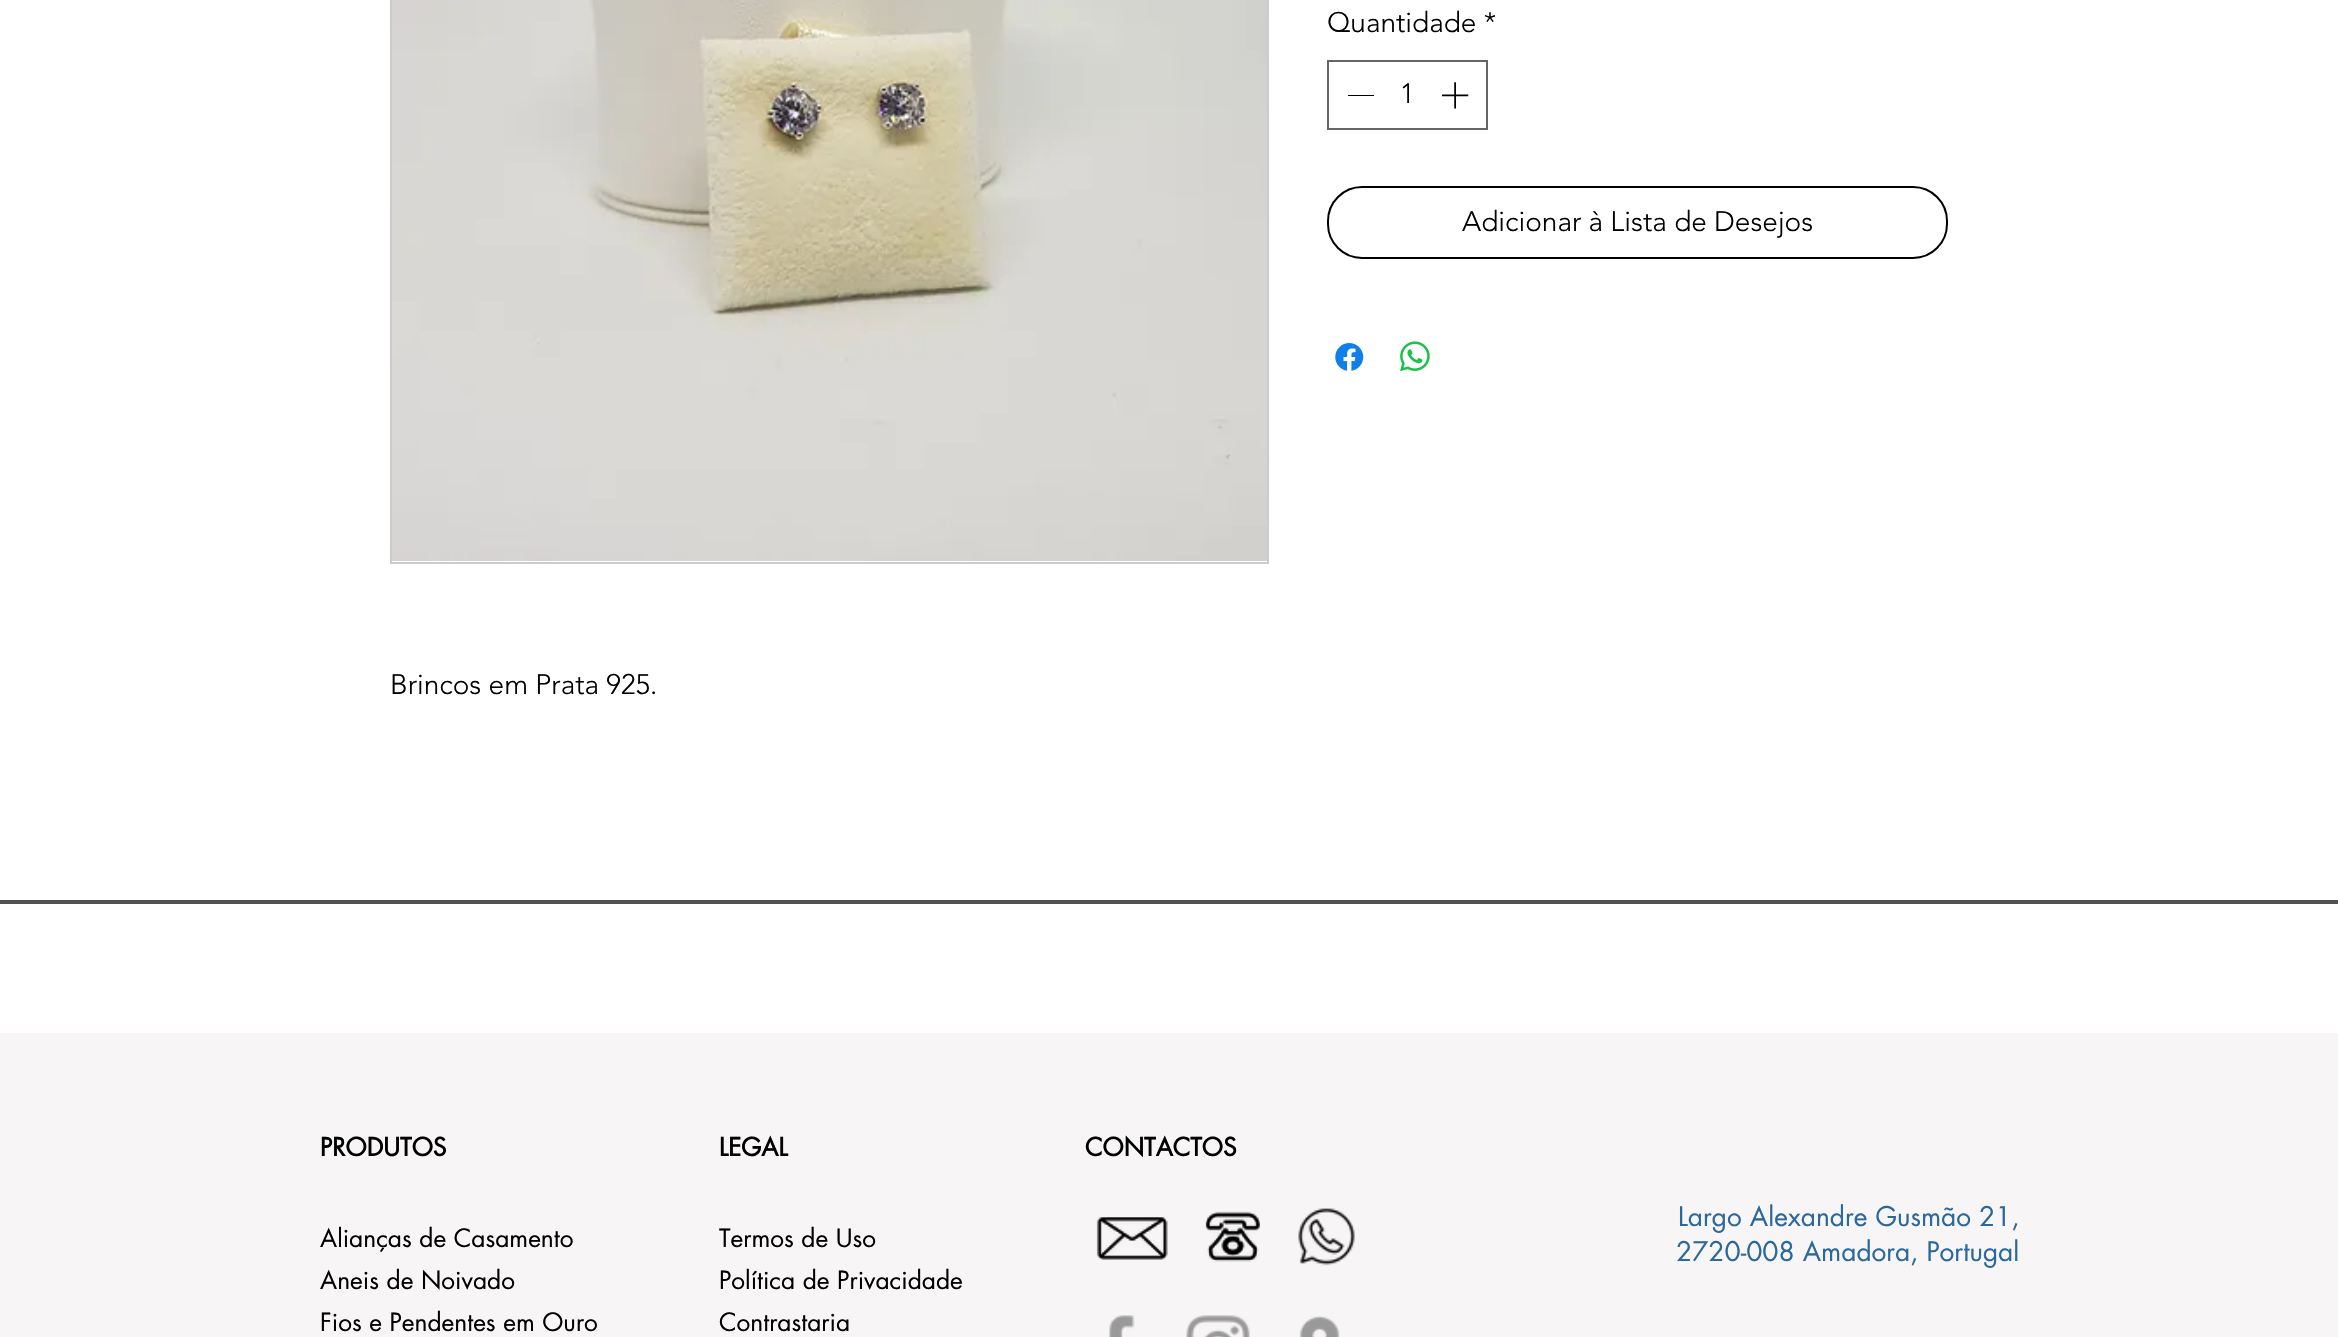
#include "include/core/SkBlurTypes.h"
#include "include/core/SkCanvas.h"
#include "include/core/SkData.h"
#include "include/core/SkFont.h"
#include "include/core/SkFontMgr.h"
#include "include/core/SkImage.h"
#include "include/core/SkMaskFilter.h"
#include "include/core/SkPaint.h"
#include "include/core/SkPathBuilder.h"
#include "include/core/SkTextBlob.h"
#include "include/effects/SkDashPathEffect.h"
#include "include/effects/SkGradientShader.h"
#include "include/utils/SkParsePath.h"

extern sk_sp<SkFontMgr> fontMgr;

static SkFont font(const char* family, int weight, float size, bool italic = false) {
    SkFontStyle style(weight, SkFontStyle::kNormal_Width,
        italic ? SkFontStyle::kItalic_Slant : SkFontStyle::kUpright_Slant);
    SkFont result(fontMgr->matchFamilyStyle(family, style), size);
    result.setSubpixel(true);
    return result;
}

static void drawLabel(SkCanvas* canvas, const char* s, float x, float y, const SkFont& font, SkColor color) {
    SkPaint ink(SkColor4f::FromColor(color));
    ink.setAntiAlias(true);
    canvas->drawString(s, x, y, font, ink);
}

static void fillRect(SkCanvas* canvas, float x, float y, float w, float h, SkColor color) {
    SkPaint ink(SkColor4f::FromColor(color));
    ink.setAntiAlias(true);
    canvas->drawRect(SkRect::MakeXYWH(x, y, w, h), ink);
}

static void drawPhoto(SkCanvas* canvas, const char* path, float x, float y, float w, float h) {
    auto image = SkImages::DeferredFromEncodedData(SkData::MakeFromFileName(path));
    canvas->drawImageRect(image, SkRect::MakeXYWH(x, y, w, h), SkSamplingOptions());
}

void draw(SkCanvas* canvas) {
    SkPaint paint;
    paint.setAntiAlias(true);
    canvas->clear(0xFFFFFFFF);
    SkFont font1 = font("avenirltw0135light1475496", 300, 28);
    drawLabel(canvas, "Quantidade *", 1327, 32, font1, 0xFF000000);
    paint.setStroke(true);
    paint.setStrokeWidth(2);
    paint.setColor(0xFF666666);
    canvas->drawRect(SkRect::MakeXYWH(1328, 61, 159, 68), paint);
    fillRect(canvas, 1348, 95, 26, 1, 0xFF000000);
    drawLabel(canvas, "1", 1400, 103, font1, 0xFF000000);
    drawPhoto(canvas, "assets/img1.png", 1442, 82, 27, 27);
    paint.setColor(0xFF000000);
    canvas->drawRoundRect(SkRect::MakeXYWH(1328, 187, 619, 71), 34, 34, paint);
    drawLabel(canvas, "Adicionar à Lista de Desejos", 1462, 231, font1, 0xFF000000);
    drawPhoto(canvas, "assets/img2.png", 1335, 343, 29, 28);
    drawPhoto(canvas, "assets/img3.png", 1400, 341, 30, 31);
    paint.setColor(0xFFCCCCCC);
    canvas->drawRect(SkRect::MakeXYWH(391, -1, 877, 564), paint);
    drawPhoto(canvas, "assets/img4.png", 392, 0, 875, 561);
    drawLabel(canvas, "Brincos em Prata 925.", 390, 694, font1, 0xFF000000);
    fillRect(canvas, 0, 900, 2338, 4, 0xFF515151);
    fillRect(canvas, 0, 1033, 2338, 304, 0xFFF7F5F5);
    SkFont font2 = font("futura", 700, 24.5f);
    drawLabel(canvas, "PRODUTOS", 320, 1156, font2, 0xFF000000);
    drawLabel(canvas, "LEGAL", 719, 1156, font2, 0xFF000000);
    drawLabel(canvas, "CONTACTOS", 1085, 1156, font2, 0xFF000000);
    SkFont font3 = font("futura", 400, 24.5f);
    drawLabel(canvas, "Alianças de Casamento", 320, 1247, font3, 0xFF000000);
    drawLabel(canvas, "Termos de Uso", 719, 1247, font3, 0xFF000000);
    drawPhoto(canvas, "assets/img5.png", 1096, 1217, 72, 43);
    drawPhoto(canvas, "assets/img6.png", 1205, 1211, 55, 51);
    drawPhoto(canvas, "assets/img7.png", 1298, 1208, 57, 58);
    SkFont font4 = font("futura", 400, 26.25f);
    drawLabel(canvas, "Largo Alexandre Gusmão 21,", 1678, 1226, font4, 0xFF2B689C);
    drawLabel(canvas, "2720-008 Amadora, Portugal", 1676, 1261, font4, 0xFF2B689C);
    drawLabel(canvas, "Aneis de Noivado", 320, 1289, font3, 0xFF000000);
    drawLabel(canvas, "Política de Privacidade", 719, 1289, font3, 0xFF000000);
    drawLabel(canvas, "Fios e Pendentes em Ouro", 320, 1331, font3, 0xFF000000);
    drawLabel(canvas, "Contrastaria", 719, 1331, font3, 0xFF000000);
    drawPhoto(canvas, "assets/img8.png", 1109, 1315, 26, 22);
    drawPhoto(canvas, "assets/img9.png", 1186, 1315, 64, 22);
    drawPhoto(canvas, "assets/img10.png", 1299, 1315, 41, 22);
}
